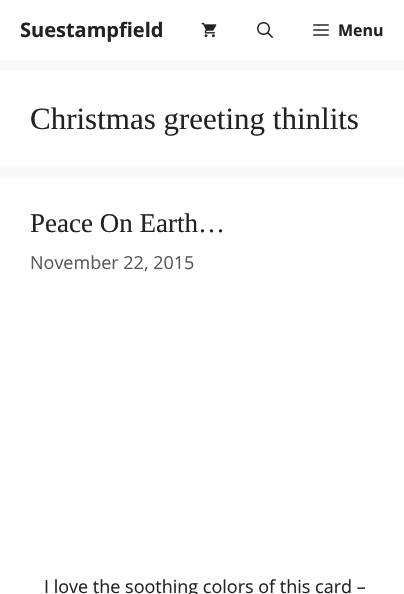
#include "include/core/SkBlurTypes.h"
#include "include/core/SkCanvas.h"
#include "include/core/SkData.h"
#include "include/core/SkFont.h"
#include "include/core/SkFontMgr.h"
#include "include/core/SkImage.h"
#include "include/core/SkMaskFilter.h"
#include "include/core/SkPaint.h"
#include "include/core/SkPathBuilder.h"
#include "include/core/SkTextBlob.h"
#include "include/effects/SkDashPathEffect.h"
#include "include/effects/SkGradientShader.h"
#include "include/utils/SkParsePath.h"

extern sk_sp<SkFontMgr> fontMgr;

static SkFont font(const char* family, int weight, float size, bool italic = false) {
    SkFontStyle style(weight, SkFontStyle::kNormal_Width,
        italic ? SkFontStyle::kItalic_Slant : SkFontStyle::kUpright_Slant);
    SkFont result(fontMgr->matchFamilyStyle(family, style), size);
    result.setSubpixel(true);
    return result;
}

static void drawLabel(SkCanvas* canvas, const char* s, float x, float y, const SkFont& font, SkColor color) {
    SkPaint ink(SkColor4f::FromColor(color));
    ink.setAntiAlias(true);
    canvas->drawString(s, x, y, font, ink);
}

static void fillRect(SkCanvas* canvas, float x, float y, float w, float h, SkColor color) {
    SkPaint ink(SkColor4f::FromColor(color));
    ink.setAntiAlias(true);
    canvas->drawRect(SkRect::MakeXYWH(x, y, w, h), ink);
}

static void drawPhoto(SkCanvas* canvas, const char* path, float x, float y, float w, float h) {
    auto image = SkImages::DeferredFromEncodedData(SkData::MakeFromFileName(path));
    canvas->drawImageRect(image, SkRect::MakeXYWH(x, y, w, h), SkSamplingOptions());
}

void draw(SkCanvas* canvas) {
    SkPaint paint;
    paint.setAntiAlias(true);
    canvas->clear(0xFFF7F8F9);
    fillRect(canvas, 0, 0, 404, 60, 0xFFFFFFFF);
    SkFont font1 = font("Open Sans", 700, 20);
    drawLabel(canvas, "Suestampfield", 20, 37, font1, 0xFF222222);
    drawPhoto(canvas, "assets/img1.png", 201, 22, 16, 16);
    drawPhoto(canvas, "assets/img2.png", 257, 22, 16, 16);
    drawPhoto(canvas, "assets/img3.png", 313, 24, 16, 12);
    SkFont font2 = font("Open Sans", 700, 16);
    drawLabel(canvas, "Menu", 338, 36, font2, 0xFF222222);
    fillRect(canvas, 0, 70, 404, 97, 0xFFFFFFFF);
    SkFont font3 = font("Liberation Serif", 400, 31);
    drawLabel(canvas, "Christmas greeting thinlits", 30, 129, font3, 0xFF222222);
    fillRect(canvas, 0, 177, 404, 417, 0xFFFFFFFF);
    SkFont font4 = font("Liberation Serif", 400, 27);
    drawLabel(canvas, "Peace On Earth…", 30, 232, font4, 0xFF222222);
    SkFont font5 = font("Open Sans", 400, 18);
    drawLabel(canvas, "November 22, 2015", 30, 269, font5, 0xFF595959);
    drawLabel(canvas, "I love the soothing colors of this card –", 44, 593, font5, 0xFF222222);
}
